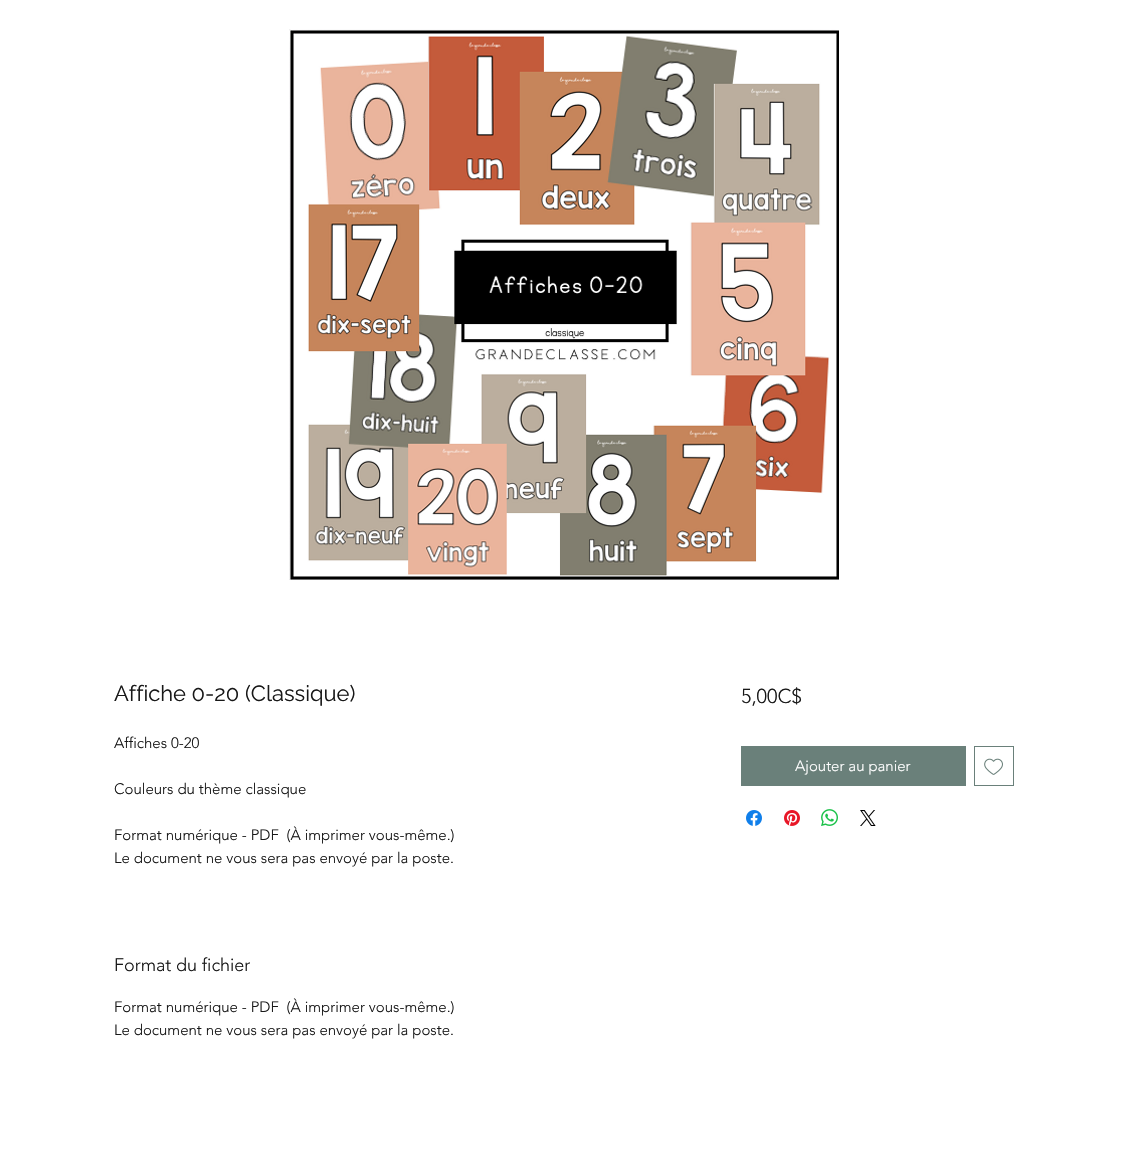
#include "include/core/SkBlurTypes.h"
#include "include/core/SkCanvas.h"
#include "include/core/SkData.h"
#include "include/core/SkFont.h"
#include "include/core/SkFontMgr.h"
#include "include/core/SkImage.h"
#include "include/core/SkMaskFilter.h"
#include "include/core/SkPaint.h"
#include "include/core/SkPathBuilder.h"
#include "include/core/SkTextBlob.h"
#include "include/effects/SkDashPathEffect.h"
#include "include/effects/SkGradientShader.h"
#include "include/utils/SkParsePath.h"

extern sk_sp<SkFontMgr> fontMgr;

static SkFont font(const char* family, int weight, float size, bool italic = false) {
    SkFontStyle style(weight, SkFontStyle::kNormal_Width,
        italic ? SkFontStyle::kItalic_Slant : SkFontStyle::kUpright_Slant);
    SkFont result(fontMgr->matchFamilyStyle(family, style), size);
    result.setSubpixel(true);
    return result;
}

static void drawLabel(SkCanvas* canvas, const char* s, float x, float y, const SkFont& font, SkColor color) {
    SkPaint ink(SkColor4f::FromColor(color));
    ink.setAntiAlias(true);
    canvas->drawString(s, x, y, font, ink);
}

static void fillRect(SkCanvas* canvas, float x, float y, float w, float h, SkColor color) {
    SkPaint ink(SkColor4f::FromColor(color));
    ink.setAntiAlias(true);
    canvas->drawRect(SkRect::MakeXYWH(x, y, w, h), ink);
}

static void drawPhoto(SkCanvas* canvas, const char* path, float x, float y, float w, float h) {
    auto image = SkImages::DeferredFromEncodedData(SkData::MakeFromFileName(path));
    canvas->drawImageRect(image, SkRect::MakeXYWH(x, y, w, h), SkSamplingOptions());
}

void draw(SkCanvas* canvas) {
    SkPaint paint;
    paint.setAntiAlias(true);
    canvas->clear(0xFFFFFFFF);
    drawPhoto(canvas, "assets/img1.png", 289, 29, 550, 551);
    SkFont font1 = font("Raleway", 400, 22);
    drawLabel(canvas, "Affiche 0-20 (Classique)", 114, 701, font1, 0xFF181818);
    SkFont font2 = font("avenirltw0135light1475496", 300, 15);
    drawLabel(canvas, "Affiches 0-20", 114, 748, font2, 0xFF181818);
    drawLabel(canvas, "Couleurs du thème classique", 114, 794, font2, 0xFF181818);
    drawLabel(canvas, "Format numérique - PDF  (À imprimer vous-même.)", 114, 840, font2, 0xFF181818);
    drawLabel(canvas, "Le document ne vous sera pas envoyé par la poste.", 114, 863, font2, 0xFF181818);
    SkFont font3 = font("avenirltw0135light1475496", 300, 18);
    drawLabel(canvas, "Format du fichier", 114, 971, font3, 0xFF181818);
    drawLabel(canvas, "Format numérique - PDF  (À imprimer vous-même.)", 114, 1012, font2, 0xFF181818);
    drawLabel(canvas, "Le document ne vous sera pas envoyé par la poste.", 114, 1035, font2, 0xFF181818);
    SkFont font4 = font("avenirltw0135light1475496", 300, 20);
    drawLabel(canvas, "5,00C$", 741, 703, font4, 0xFF181818);
    fillRect(canvas, 741, 746, 225, 40, 0xFF6A807A);
    drawLabel(canvas, "Ajouter au panier", 795, 771, font2, 0xFFFFFFFF);
    paint.setStroke(true);
    paint.setStrokeWidth(1);
    paint.setColor(0xFF6A807A);
    canvas->drawRect(SkRect::MakeXYWH(974.5f, 746.5f, 39, 39), paint);
    drawPhoto(canvas, "assets/img2.png", 984, 758, 19, 17);
    drawPhoto(canvas, "assets/img3.png", 746, 810, 16, 16);
    drawPhoto(canvas, "assets/img4.png", 784, 810, 16, 16);
    drawPhoto(canvas, "assets/img5.png", 821, 809, 17, 17);
    drawPhoto(canvas, "assets/img6.png", 860, 810, 16, 16);
}
